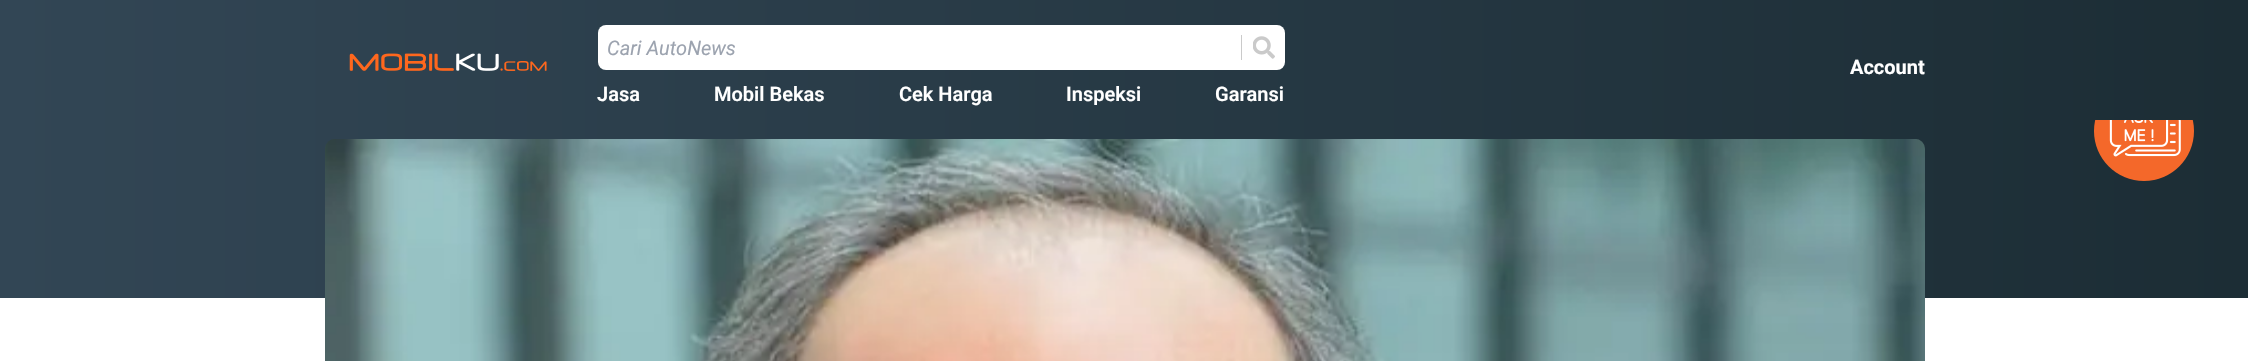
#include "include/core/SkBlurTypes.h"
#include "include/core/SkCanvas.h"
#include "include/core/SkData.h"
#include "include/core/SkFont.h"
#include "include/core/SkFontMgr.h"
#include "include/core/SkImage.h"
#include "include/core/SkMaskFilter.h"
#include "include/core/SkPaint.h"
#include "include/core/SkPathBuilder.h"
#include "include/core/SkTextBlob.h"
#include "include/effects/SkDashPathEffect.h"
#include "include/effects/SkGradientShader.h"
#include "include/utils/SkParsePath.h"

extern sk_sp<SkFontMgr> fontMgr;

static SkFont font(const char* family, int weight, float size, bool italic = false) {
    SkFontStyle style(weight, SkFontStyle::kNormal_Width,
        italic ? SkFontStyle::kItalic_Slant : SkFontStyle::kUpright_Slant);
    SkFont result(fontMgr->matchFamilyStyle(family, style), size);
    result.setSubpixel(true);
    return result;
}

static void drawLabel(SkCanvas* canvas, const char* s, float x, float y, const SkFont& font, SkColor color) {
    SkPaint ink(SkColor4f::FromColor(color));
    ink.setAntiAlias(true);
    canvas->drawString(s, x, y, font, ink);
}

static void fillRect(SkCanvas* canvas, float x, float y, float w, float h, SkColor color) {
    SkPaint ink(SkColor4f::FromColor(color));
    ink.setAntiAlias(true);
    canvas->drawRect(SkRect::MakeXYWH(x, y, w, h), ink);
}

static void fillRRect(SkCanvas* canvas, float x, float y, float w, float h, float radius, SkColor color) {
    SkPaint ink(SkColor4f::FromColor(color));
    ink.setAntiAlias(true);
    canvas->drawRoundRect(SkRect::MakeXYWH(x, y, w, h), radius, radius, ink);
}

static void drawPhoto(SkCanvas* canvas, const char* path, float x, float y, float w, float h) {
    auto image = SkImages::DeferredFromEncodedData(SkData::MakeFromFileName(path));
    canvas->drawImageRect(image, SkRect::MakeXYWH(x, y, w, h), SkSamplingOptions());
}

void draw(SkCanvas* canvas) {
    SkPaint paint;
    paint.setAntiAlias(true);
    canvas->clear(0xFFFFFFFF);
    {
        const SkColor colors[] = {0xFF324655, 0xFF1C2D35};
        const float stops[] = {0, 1};
        const SkPoint ends[] = {{0, 60}, {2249, 60}};
        paint.setShader(SkGradientShader::MakeLinear(ends, colors, stops, 2, SkTileMode::kClamp));
        paint.setAlpha(255);
    }
    canvas->drawRect(SkRect::MakeXYWH(0, 0, 2248, 120), paint);
    drawPhoto(canvas, "assets/img1.png", 349, 53, 198, 18);
    fillRRect(canvas, 598, 25, 687, 45, 8, 0xFFFFFFFF);
    fillRect(canvas, 1241, 35, 1, 25, 0xFFCACACA);
    SkFont font1 = font("Roboto", 400, 20, true);
    drawLabel(canvas, "Cari AutoNews", 607, 55, font1, 0xFF9CA3AF);
    drawPhoto(canvas, "assets/img2.png", 1253, 36, 22, 23);
    SkFont font2 = font("Roboto", 600, 20);
    drawLabel(canvas, "Jasa", 597, 101, font2, 0xFFFFFFFF);
    drawLabel(canvas, "Mobil Bekas", 714, 101, font2, 0xFFFFFFFF);
    drawLabel(canvas, "Cek Harga", 899, 101, font2, 0xFFFFFFFF);
    drawLabel(canvas, "Inspeksi", 1066, 101, font2, 0xFFFFFFFF);
    drawLabel(canvas, "Garansi", 1215, 101, font2, 0xFFFFFFFF);
    SkFont font3 = font("Roboto", 700, 20);
    drawLabel(canvas, "Account", 1850, 74, font3, 0xFFFFFFFF);
    {
        const SkColor colors[] = {0xFF324655, 0xFF1C2D35};
        const float stops[] = {0, 1};
        const SkPoint ends[] = {{0, 204}, {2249, 204}};
        paint.setShader(SkGradientShader::MakeLinear(ends, colors, stops, 2, SkTileMode::kClamp));
        paint.setAlpha(255);
    }
    canvas->drawRect(SkRect::MakeXYWH(0, 120, 2248, 178), paint);
    drawPhoto(canvas, "assets/img3.png", 325, 139, 1600, 222);
    drawPhoto(canvas, "assets/img4.png", 2094, 120, 100, 61);
}
